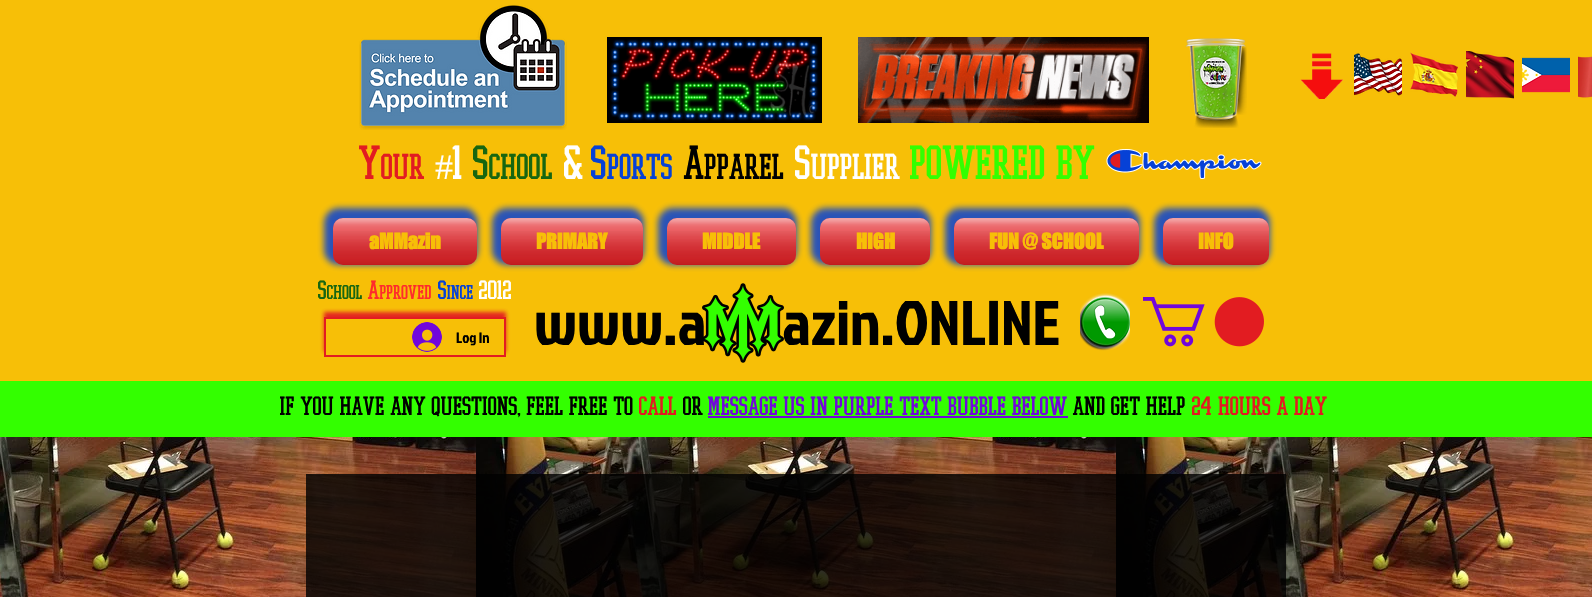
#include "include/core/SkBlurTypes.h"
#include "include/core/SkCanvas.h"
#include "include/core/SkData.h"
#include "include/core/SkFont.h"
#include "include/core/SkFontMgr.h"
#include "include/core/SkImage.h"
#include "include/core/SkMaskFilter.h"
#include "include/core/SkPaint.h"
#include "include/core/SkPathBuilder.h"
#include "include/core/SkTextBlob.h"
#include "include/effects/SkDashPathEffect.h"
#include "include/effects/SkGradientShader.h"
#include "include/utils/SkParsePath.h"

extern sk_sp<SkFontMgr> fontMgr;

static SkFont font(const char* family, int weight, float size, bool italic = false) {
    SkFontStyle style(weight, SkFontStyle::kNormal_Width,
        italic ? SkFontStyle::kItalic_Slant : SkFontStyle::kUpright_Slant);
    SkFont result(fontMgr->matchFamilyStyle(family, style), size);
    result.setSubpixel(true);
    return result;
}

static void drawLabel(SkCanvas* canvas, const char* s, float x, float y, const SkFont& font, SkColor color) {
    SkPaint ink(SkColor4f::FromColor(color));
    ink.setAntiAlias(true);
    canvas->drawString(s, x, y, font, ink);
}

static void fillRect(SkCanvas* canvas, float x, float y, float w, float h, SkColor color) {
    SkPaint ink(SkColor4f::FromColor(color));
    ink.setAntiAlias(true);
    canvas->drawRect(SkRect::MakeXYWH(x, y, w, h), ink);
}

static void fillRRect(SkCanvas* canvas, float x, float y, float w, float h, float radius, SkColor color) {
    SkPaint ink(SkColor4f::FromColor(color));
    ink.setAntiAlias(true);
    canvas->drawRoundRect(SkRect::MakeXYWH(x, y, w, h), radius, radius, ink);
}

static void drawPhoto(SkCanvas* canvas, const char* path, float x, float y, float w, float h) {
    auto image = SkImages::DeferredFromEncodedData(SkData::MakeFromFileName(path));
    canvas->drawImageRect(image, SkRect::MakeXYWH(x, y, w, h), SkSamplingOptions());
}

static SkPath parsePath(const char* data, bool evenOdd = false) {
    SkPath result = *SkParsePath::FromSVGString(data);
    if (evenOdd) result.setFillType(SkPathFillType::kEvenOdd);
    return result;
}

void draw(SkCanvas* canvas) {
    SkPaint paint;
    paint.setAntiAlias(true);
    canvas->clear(0xFFFFFFFF);
    fillRect(canvas, 0, 0, 1592, 381, 0xFFF7BF07);
    drawPhoto(canvas, "assets/img1.png", 359, 5, 208, 125);
    drawPhoto(canvas, "assets/img2.png", 607, 37, 215, 86);
    drawPhoto(canvas, "assets/img3.png", 858, 37, 291, 86);
    drawPhoto(canvas, "assets/img4.png", 1185, 38, 62, 90);
    drawPhoto(canvas, "assets/img5.png", 1300, 53, 44, 46);
    drawPhoto(canvas, "assets/img6.png", 1354, 53, 48, 43);
    drawPhoto(canvas, "assets/img7.png", 1410, 52, 48, 45);
    drawPhoto(canvas, "assets/img8.png", 1466, 51, 48, 48);
    drawPhoto(canvas, "assets/img9.png", 1522, 57, 48, 36);
    drawPhoto(canvas, "assets/img10.png", 1578, 56, 14, 42);
    SkFont font1 = font("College", 400, 36);
    drawLabel(canvas, "Your", 359, 179, font1, 0xFFE21C21);
    SkFont font2 = font("Liberation Serif", 400, 36);
    drawLabel(canvas, "#", 435, 179, font2, 0xFFFFFFFF);
    drawLabel(canvas, "1", 453, 179, font1, 0xFFFFFFFF);
    drawLabel(canvas, "School", 473, 179, font1, 0xFF176610);
    drawLabel(canvas, "&", 564, 179, font1, 0xFFFFFFFF);
    drawLabel(canvas, "Sports", 591, 179, font1, 0xFF0641D6);
    drawLabel(canvas, "Apparel", 684, 179, font1, 0xFF000000);
    drawLabel(canvas, "Supplier", 795, 179, font1, 0xFFFFFFFF);
    drawLabel(canvas, "POWERED BY", 910, 179, font1, 0xFF33FF00);
    drawPhoto(canvas, "assets/img11.png", 1106, 149, 156, 30);
    paint.setColor(0xD90641D6);
    paint.setMaskFilter(SkMaskFilter::MakeBlur(kNormal_SkBlurStyle, 3));
    canvas->drawRoundRect(SkRect::MakeXYWH(324, 208, 154, 57), 15, 15, paint);
    paint.setMaskFilter(nullptr);
    fillRRect(canvas, 333, 218, 144, 47, 10, 0xFFE21C21);
    drawPhoto(canvas, "assets/img12.png", 333, 218, 144, 46);
    drawPhoto(canvas, "assets/img13.png", 333, 231, 144, 34);
    SkFont font3 = font("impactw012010", 700, 20);
    drawLabel(canvas, "aMMazin", 369, 249, font3, 0xFFF7BF07);
    paint.setMaskFilter(SkMaskFilter::MakeBlur(kNormal_SkBlurStyle, 3));
    canvas->drawRoundRect(SkRect::MakeXYWH(492, 208, 152, 57), 15, 15, paint);
    paint.setMaskFilter(nullptr);
    fillRRect(canvas, 501, 218, 142, 47, 10, 0xFFE21C21);
    drawPhoto(canvas, "assets/img14.png", 501, 218, 142, 46);
    drawPhoto(canvas, "assets/img15.png", 501, 231, 142, 34);
    drawLabel(canvas, "PRIMARY", 536, 249, font3, 0xFFF7BF07);
    paint.setMaskFilter(SkMaskFilter::MakeBlur(kNormal_SkBlurStyle, 3));
    canvas->drawRoundRect(SkRect::MakeXYWH(658, 208, 139, 57), 15, 15, paint);
    paint.setMaskFilter(nullptr);
    fillRRect(canvas, 667, 218, 129, 47, 10, 0xFFE21C21);
    drawPhoto(canvas, "assets/img16.png", 667, 218, 129, 46);
    drawPhoto(canvas, "assets/img17.png", 667, 231, 129, 34);
    drawLabel(canvas, "MIDDLE", 702, 249, font3, 0xFFF7BF07);
    paint.setMaskFilter(SkMaskFilter::MakeBlur(kNormal_SkBlurStyle, 3));
    canvas->drawRoundRect(SkRect::MakeXYWH(811, 208, 120, 57), 15, 15, paint);
    paint.setMaskFilter(nullptr);
    fillRRect(canvas, 820, 218, 110, 47, 10, 0xFFE21C21);
    drawPhoto(canvas, "assets/img18.png", 820, 218, 110, 46);
    drawPhoto(canvas, "assets/img19.png", 820, 231, 110, 34);
    drawLabel(canvas, "HIGH", 856, 249, font3, 0xFFF7BF07);
    paint.setMaskFilter(SkMaskFilter::MakeBlur(kNormal_SkBlurStyle, 3));
    canvas->drawRoundRect(SkRect::MakeXYWH(945, 208, 195, 57), 15, 15, paint);
    paint.setMaskFilter(nullptr);
    fillRRect(canvas, 954, 218, 185, 47, 10, 0xFFE21C21);
    drawPhoto(canvas, "assets/img20.png", 954, 218, 185, 46);
    drawPhoto(canvas, "assets/img21.png", 954, 231, 185, 34);
    drawLabel(canvas, "FUN @ SCHOOL", 989, 249, font3, 0xFFF7BF07);
    paint.setMaskFilter(SkMaskFilter::MakeBlur(kNormal_SkBlurStyle, 3));
    canvas->drawRoundRect(SkRect::MakeXYWH(1154, 208, 116, 57), 15, 15, paint);
    paint.setMaskFilter(nullptr);
    fillRRect(canvas, 1163, 218, 106, 47, 10, 0xFFE21C21);
    drawPhoto(canvas, "assets/img22.png", 1163, 218, 106, 46);
    drawPhoto(canvas, "assets/img23.png", 1163, 231, 106, 34);
    drawLabel(canvas, "INFO", 1198, 249, font3, 0xFFF7BF07);
    SkFont font4 = font("College", 400, 20);
    drawLabel(canvas, "School", 318, 299, font4, 0xFF176610);
    drawLabel(canvas, "Approved", 368, 299, font4, 0xFFFF2B2B);
    drawLabel(canvas, "Since", 438, 299, font4, 0xFF0641D6);
    drawLabel(canvas, "2012", 479, 299, font4, 0xFFFFFFFF);
    SkFont font5 = font("Jockey One", 400, 63);
    drawLabel(canvas, "www.a", 534, 345, font5, 0xFF000000);
    drawLabel(canvas, "azin.ONLINE", 782, 345, font5, 0xFF000000);
    drawPhoto(canvas, "assets/img24.png", 702, 283, 82, 80);
    drawPhoto(canvas, "assets/img25.png", 1080, 293, 50, 58);
    drawPhoto(canvas, "assets/img26.png", 1143, 297, 121, 50);
    canvas->save();
    canvas->clipPath(parsePath("M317 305H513V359H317ZM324 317H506V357H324Z", true), true);
    paint.setColor(0xF0E21C21);
    paint.setMaskFilter(SkMaskFilter::MakeBlur(kNormal_SkBlurStyle, 2));
    canvas->drawRect(SkRect::MakeXYWH(324, 312, 182, 40), paint);
    paint.setMaskFilter(nullptr);
    canvas->restore();
    paint.setStroke(true);
    paint.setStrokeWidth(2);
    paint.setColor(0xFFE21C21);
    canvas->drawRect(SkRect::MakeXYWH(325, 318, 180, 38), paint);
    drawPhoto(canvas, "assets/img27.png", 412, 322, 30, 30);
    SkFont font6 = font("Jockey One", 400, 15);
    drawLabel(canvas, "Log In", 456, 343, font6, 0xFF000000);
    fillRect(canvas, 0, 381, 1592, 56, 0xFF33FF00);
    drawLabel(canvas, "IF YOU HAVE ANY QUESTIONS, FEEL FREE TO", 280, 415, font4, 0xFF000000);
    drawLabel(canvas, "CALL", 639, 415, font4, 0xFFE21C21);
    drawLabel(canvas, "OR", 683, 415, font4, 0xFF000000);
    drawLabel(canvas, "MESSAGE US IN PURPLE TEXT BUBBLE BELOW", 708, 415, font4, 0xFF7107DB);
    fillRect(canvas, 708, 416, 360, 2, 0xFF7107DB);
    drawLabel(canvas, "AND GET HELP", 1073, 415, font4, 0xFF000000);
    drawLabel(canvas, "24 HOURS A DAY", 1192, 415, font4, 0xFFE21C21);
    drawPhoto(canvas, "assets/img28.png", 0, 437, 1592, 160);
    fillRect(canvas, 306, 474, 980, 123, 0xD1000000);
}
